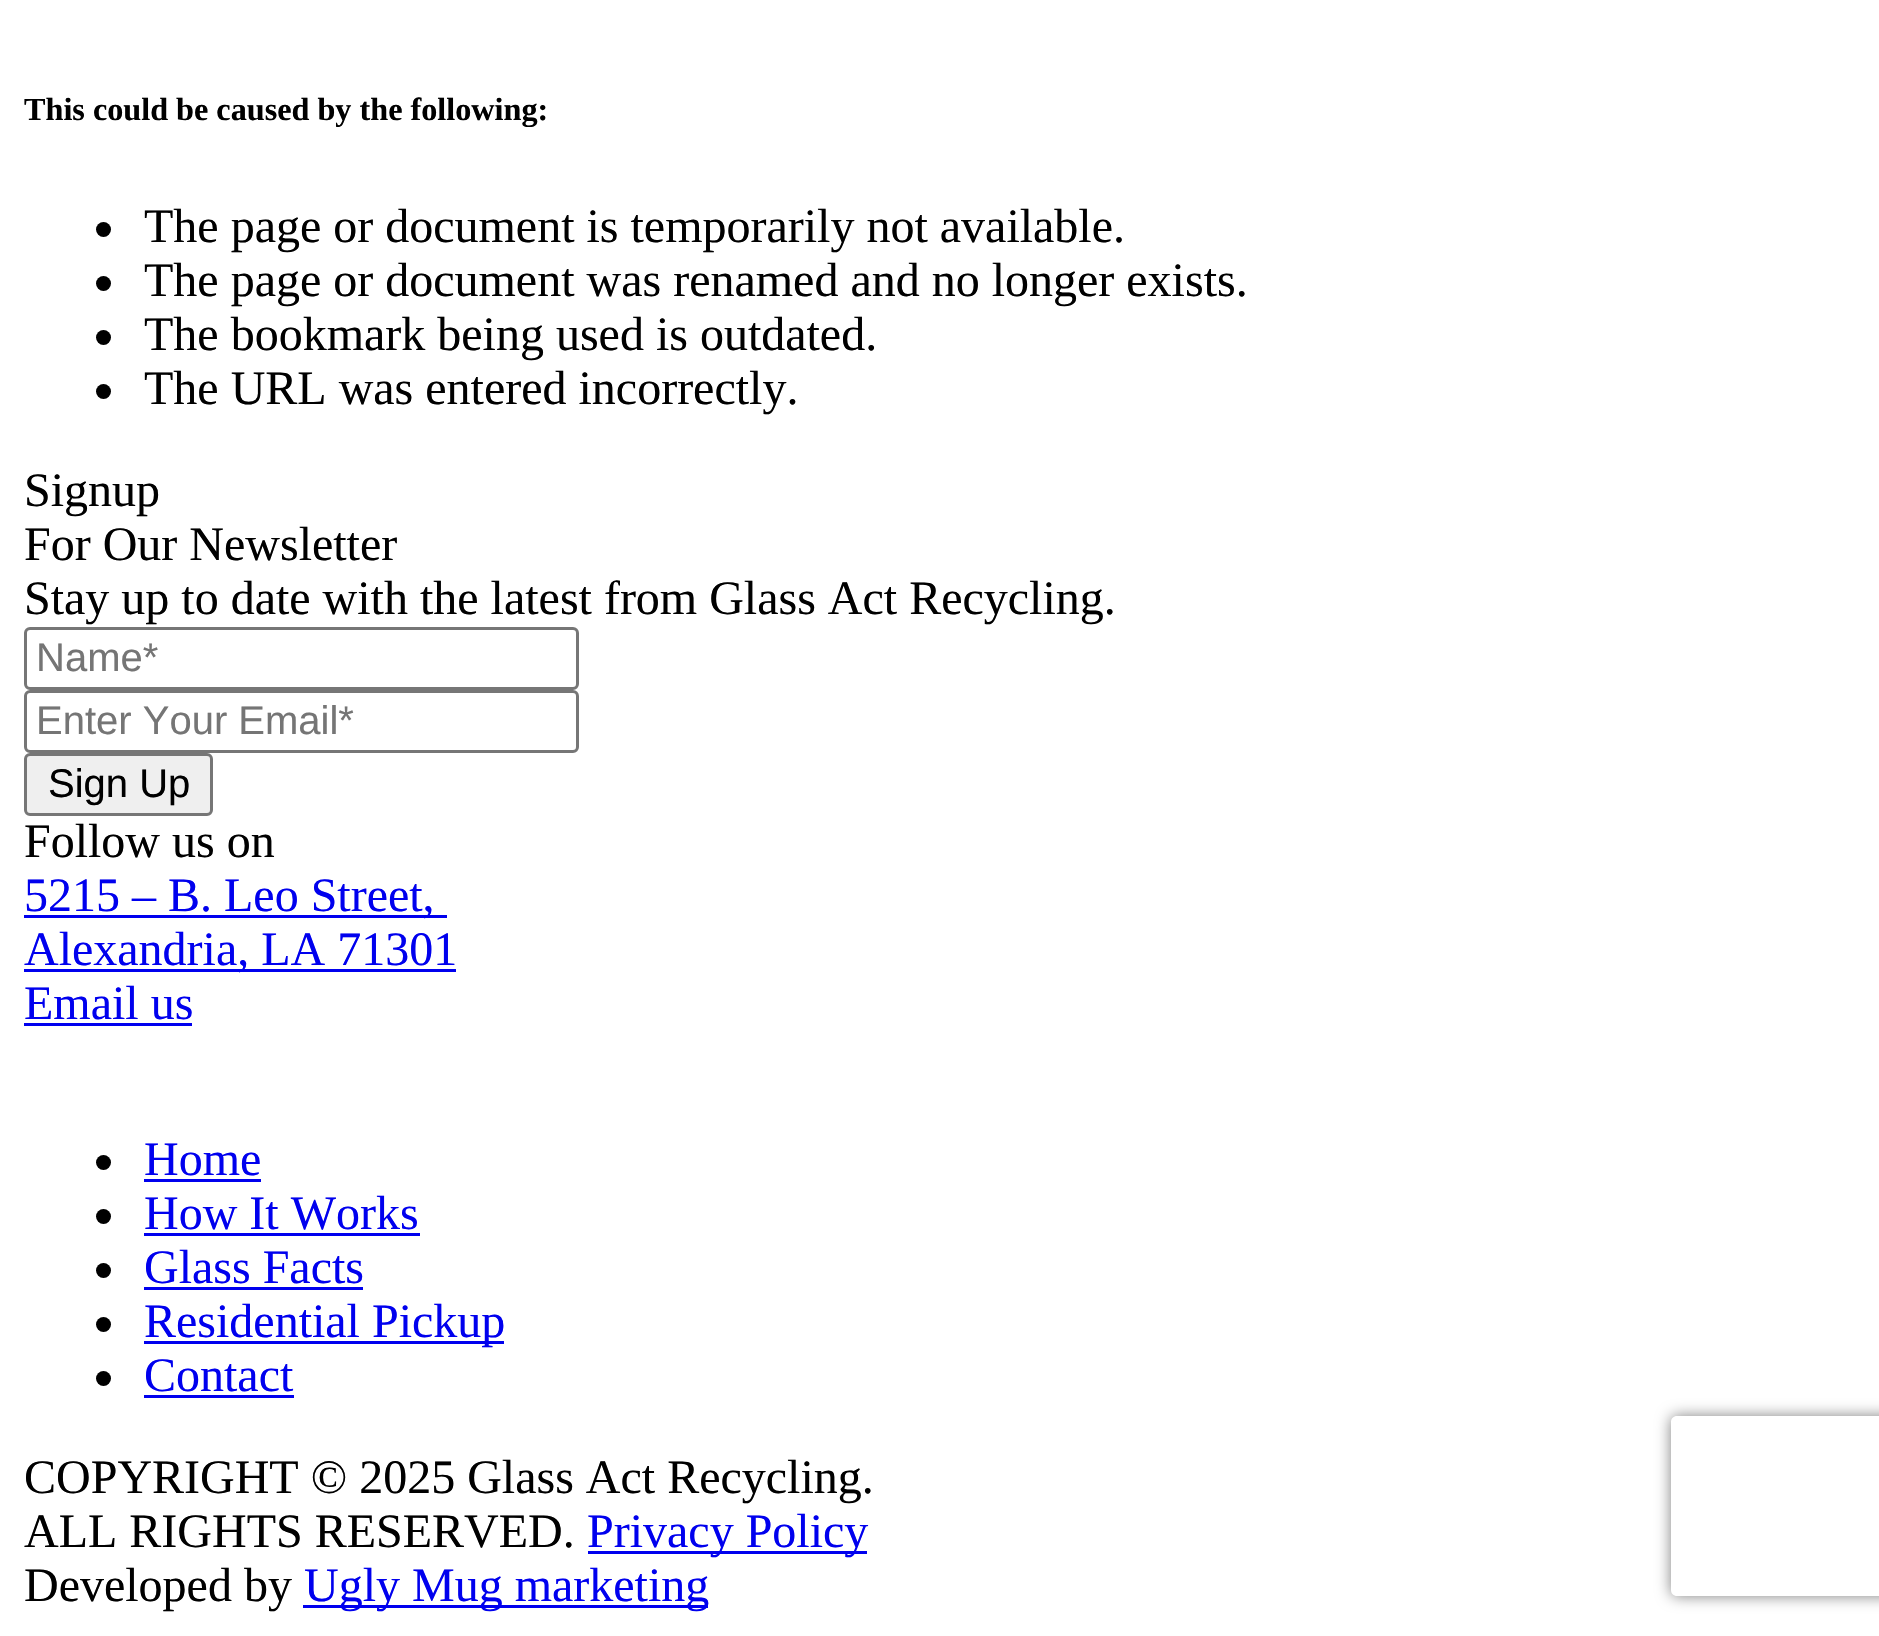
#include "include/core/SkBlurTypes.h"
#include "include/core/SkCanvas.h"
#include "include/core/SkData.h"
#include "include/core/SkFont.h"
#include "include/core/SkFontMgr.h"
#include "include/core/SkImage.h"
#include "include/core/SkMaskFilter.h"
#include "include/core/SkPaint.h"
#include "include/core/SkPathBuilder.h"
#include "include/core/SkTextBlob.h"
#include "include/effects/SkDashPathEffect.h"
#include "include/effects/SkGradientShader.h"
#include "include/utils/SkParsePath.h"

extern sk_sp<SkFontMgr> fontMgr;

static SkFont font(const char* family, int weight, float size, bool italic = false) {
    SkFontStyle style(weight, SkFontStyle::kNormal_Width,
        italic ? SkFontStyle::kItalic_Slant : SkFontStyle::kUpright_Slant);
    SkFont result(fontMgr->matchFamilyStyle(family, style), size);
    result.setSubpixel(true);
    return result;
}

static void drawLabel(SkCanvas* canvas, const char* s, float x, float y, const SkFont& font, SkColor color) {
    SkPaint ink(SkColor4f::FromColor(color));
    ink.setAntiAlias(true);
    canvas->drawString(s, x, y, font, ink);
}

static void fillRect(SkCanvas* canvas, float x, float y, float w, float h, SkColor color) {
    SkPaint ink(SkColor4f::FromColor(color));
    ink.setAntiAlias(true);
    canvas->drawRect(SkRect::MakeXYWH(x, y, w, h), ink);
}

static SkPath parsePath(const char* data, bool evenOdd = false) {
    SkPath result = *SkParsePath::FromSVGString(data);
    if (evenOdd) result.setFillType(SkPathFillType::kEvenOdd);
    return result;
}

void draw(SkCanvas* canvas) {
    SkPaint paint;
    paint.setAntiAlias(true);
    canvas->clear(0xFFFFFFFF);
    SkFont font1 = font("Liberation Serif", 700, 32.2f);
    drawLabel(canvas, "This could be caused by the following:", 24, 120, font1, 0xFF000000);
    paint.setColor(0xFF000000);
    canvas->drawCircle(103.5f, 229.5f, 7.5f, paint);
    SkFont font2 = font("Liberation Serif", 400, 48);
    drawLabel(canvas, "The page or document is temporarily not available.", 144, 242, font2, 0xFF000000);
    canvas->drawCircle(103.5f, 283.5f, 7.5f, paint);
    drawLabel(canvas, "The page or document was renamed and no longer exists.", 144, 296, font2, 0xFF000000);
    canvas->drawCircle(103.5f, 337.5f, 7.5f, paint);
    drawLabel(canvas, "The bookmark being used is outdated.", 144, 350, font2, 0xFF000000);
    canvas->drawCircle(103.5f, 391.5f, 7.5f, paint);
    drawLabel(canvas, "The URL was entered incorrectly.", 144, 404, font2, 0xFF000000);
    drawLabel(canvas, "Signup", 24, 506, font2, 0xFF000000);
    drawLabel(canvas, "For Our Newsletter", 24, 560, font2, 0xFF000000);
    drawLabel(canvas, "Stay up to date with the latest from Glass Act Recycling.", 24, 614, font2, 0xFF000000);
    paint.setStroke(true);
    paint.setStrokeWidth(3);
    paint.setColor(0xFF767676);
    canvas->drawRoundRect(SkRect::MakeXYWH(25.5f, 628.5f, 552, 60), 4.5f, 4.5f, paint);
    SkFont font3 = font("Liberation Sans", 400, 40);
    drawLabel(canvas, "Name*", 36, 671, font3, 0xFF757575);
    canvas->drawRoundRect(SkRect::MakeXYWH(25.5f, 691.5f, 552, 60), 4.5f, 4.5f, paint);
    drawLabel(canvas, "Enter Your Email*", 36, 734, font3, 0xFF757575);
    paint.setStroke(false);
    paint.setColor(0xFFEFEFEF);
    canvas->drawRoundRect(SkRect::MakeXYWH(25.5f, 754.5f, 186, 60), 4.5f, 4.5f, paint);
    paint.setStroke(true);
    paint.setColor(0xFF767676);
    canvas->drawRoundRect(SkRect::MakeXYWH(25.5f, 754.5f, 186, 60), 4.5f, 4.5f, paint);
    drawLabel(canvas, "Sign Up", 48, 797, font3, 0xFF000000);
    drawLabel(canvas, "Follow us on", 24, 857, font2, 0xFF000000);
    fillRect(canvas, 24, 915, 423, 3, 0xFF0000EE);
    drawLabel(canvas, "5215 – B. Leo Street,", 24, 911, font2, 0xFF0000EE);
    fillRect(canvas, 24, 969, 432, 3, 0xFF0000EE);
    drawLabel(canvas, "Alexandria, LA 71301", 24, 965, font2, 0xFF0000EE);
    drawLabel(canvas, "Email us", 24, 1019, font2, 0xFF0000EE);
    fillRect(canvas, 24, 1023, 168, 3, 0xFF0000EE);
    paint.setStroke(false);
    paint.setColor(0xFF000000);
    canvas->drawCircle(103.5f, 1162.5f, 7.5f, paint);
    drawLabel(canvas, "Home", 144, 1175, font2, 0xFF0000EE);
    fillRect(canvas, 144, 1179, 117, 3, 0xFF0000EE);
    canvas->drawCircle(103.5f, 1216.5f, 7.5f, paint);
    drawLabel(canvas, "How It Works", 144, 1229, font2, 0xFF0000EE);
    fillRect(canvas, 144, 1233, 276, 3, 0xFF0000EE);
    canvas->drawCircle(103.5f, 1270.5f, 7.5f, paint);
    drawLabel(canvas, "Glass Facts", 144, 1283, font2, 0xFF0000EE);
    fillRect(canvas, 144, 1287, 219, 3, 0xFF0000EE);
    canvas->drawCircle(103.5f, 1324.5f, 7.5f, paint);
    fillRect(canvas, 144, 1341, 360, 3, 0xFF0000EE);
    drawLabel(canvas, "Residential Pickup", 144, 1337, font2, 0xFF0000EE);
    canvas->drawCircle(103.5f, 1378.5f, 7.5f, paint);
    drawLabel(canvas, "Contact", 144, 1391, font2, 0xFF0000EE);
    fillRect(canvas, 144, 1395, 150, 3, 0xFF0000EE);
    drawLabel(canvas, "COPYRIGHT © 2025 Glass Act Recycling.", 24, 1493, font2, 0xFF000000);
    drawLabel(canvas, "ALL RIGHTS RESERVED.", 24, 1547, font2, 0xFF000000);
    fillRect(canvas, 588, 1551, 279, 3, 0xFF0000EE);
    drawLabel(canvas, "Privacy Policy", 587, 1547, font2, 0xFF0000EE);
    drawLabel(canvas, "Developed by", 24, 1601, font2, 0xFF000000);
    fillRect(canvas, 303, 1605, 405, 3, 0xFF0000EE);
    drawLabel(canvas, "Ugly Mug marketing", 304, 1601, font2, 0xFF0000EE);
    canvas->save();
    canvas->clipPath(parsePath("M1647 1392H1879V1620H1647ZM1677 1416H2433C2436.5 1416 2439 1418.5 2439 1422V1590C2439 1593.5 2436.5 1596 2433 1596H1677C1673.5 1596 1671 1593.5 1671 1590V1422C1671 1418.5 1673.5 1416 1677 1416Z", true), true);
    paint.setColor(0xFF808080);
    paint.setMaskFilter(SkMaskFilter::MakeBlur(kNormal_SkBlurStyle, 7.5f));
    canvas->drawRoundRect(SkRect::MakeXYWH(1671, 1416, 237, 180), 6, 6, paint);
    paint.setMaskFilter(nullptr);
    canvas->restore();
}
